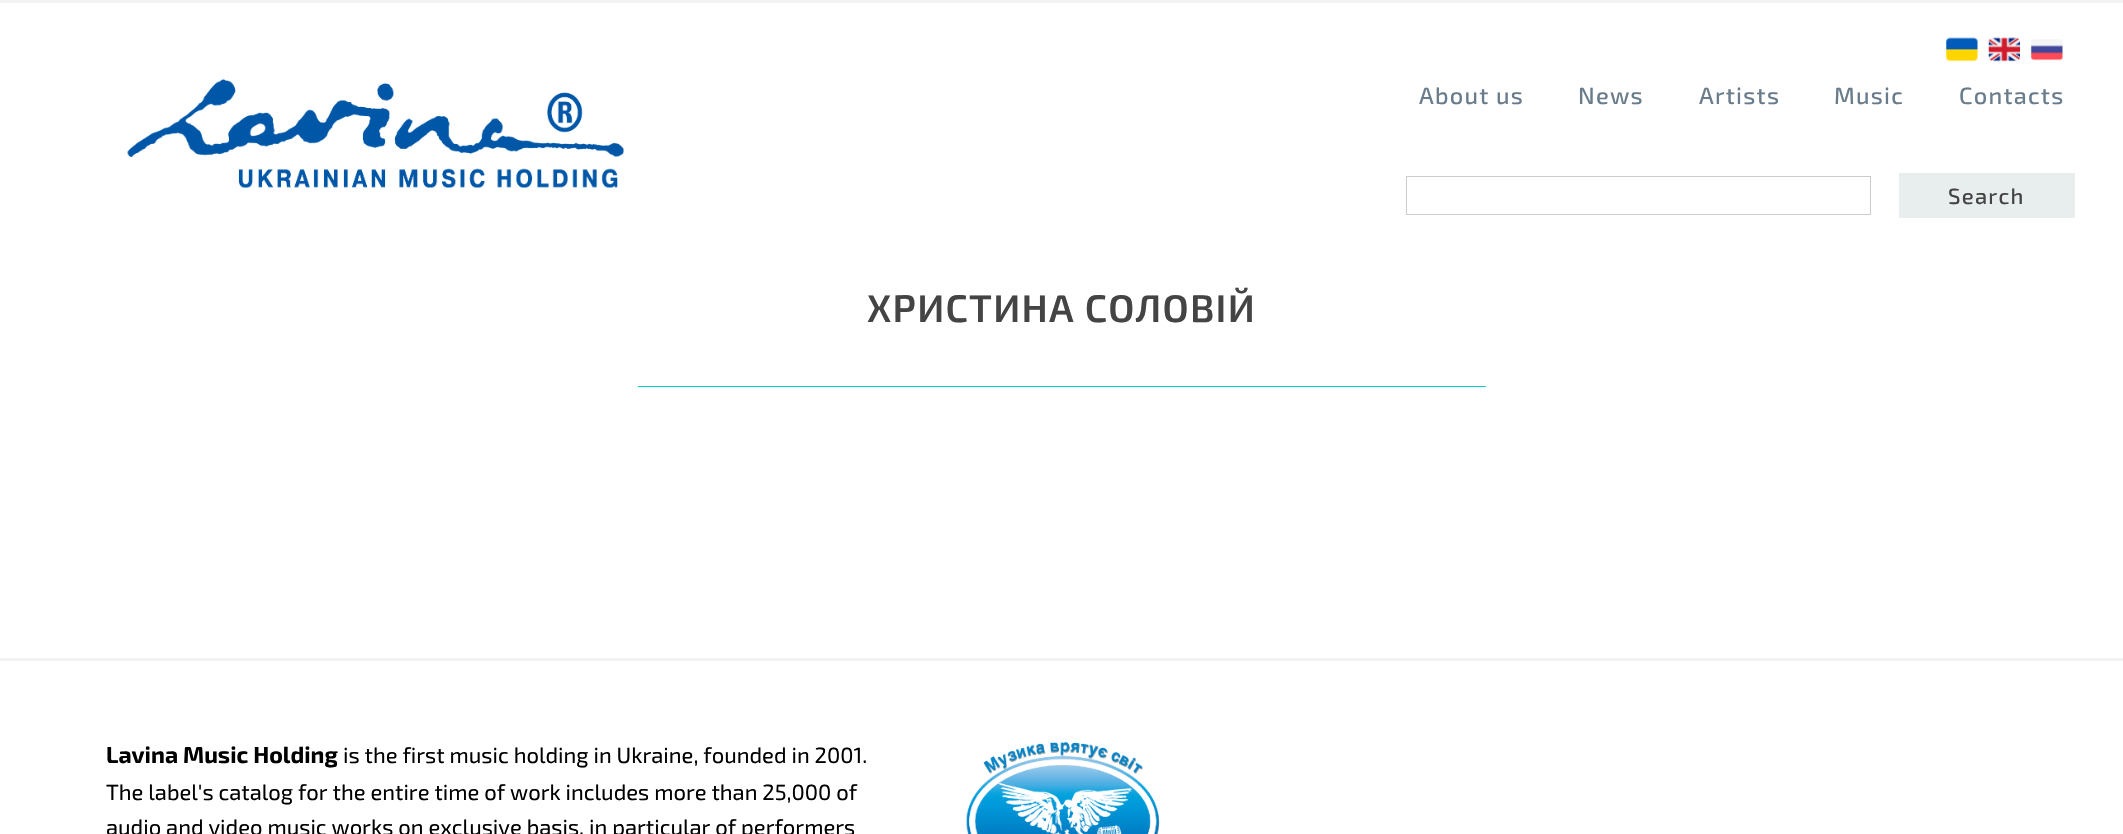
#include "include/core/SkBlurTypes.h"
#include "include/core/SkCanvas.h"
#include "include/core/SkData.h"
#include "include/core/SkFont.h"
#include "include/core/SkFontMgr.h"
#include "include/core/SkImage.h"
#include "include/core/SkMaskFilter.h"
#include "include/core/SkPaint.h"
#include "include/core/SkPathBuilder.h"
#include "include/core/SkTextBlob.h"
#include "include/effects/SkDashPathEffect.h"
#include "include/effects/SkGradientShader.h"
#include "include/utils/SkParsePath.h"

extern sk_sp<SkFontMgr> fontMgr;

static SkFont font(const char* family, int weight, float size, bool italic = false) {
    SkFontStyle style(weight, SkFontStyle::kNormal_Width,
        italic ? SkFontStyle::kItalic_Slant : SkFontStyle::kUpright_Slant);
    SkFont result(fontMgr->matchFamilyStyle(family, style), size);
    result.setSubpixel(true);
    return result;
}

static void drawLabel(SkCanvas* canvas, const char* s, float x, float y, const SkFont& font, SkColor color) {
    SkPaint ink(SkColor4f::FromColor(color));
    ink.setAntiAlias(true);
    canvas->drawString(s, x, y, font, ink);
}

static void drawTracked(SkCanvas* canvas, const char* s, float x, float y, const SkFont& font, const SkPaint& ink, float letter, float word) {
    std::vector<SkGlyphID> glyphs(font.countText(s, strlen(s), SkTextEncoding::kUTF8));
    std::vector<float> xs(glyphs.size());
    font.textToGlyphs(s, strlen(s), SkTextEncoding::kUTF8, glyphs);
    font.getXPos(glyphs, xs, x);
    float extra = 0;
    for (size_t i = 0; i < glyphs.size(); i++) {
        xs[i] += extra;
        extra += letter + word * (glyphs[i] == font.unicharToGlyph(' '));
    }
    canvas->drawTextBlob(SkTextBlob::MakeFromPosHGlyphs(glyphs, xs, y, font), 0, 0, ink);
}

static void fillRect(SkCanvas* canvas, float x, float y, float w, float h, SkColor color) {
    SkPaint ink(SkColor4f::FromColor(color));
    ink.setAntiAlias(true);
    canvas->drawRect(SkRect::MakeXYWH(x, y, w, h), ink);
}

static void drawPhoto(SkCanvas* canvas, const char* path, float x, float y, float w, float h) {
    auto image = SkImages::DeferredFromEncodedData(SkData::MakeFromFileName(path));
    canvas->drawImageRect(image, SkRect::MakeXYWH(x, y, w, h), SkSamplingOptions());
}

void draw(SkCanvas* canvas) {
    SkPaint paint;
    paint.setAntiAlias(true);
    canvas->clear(0xFFFFFFFF);
    fillRect(canvas, 0, 0, 2123, 3, 0xFFF2F2F2);
    drawPhoto(canvas, "assets/img1.png", 1946, 37, 32, 25);
    drawPhoto(canvas, "assets/img2.png", 1988, 37, 32, 25);
    drawPhoto(canvas, "assets/img3.png", 2031, 39, 32, 22);
    drawPhoto(canvas, "assets/img4.png", 127, 79, 497, 109);
    SkFont font1 = font("Exo 2", 500, 23.5f);
    paint.setColor(0xFF697C8C);
    drawTracked(canvas, "About us", 1419, 104, font1, paint, 1.25f, 0);
    drawTracked(canvas, "News", 1578, 104, font1, paint, 1.25f, 0);
    drawTracked(canvas, "Artists", 1699, 104, font1, paint, 1.25f, 0);
    drawTracked(canvas, "Music", 1834, 104, font1, paint, 1.25f, 0);
    drawTracked(canvas, "Contacts", 1959, 104, font1, paint, 1.25f, 0);
    paint.setStroke(true);
    paint.setStrokeWidth(1);
    paint.setColor(0xFFCCCCCC);
    canvas->drawRect(SkRect::MakeXYWH(1406.5f, 176.5f, 464, 38), paint);
    fillRect(canvas, 1899, 173, 176, 45, 0xFFE8EDED);
    SkFont font2 = font("Exo 2", 500, 22);
    paint.setStroke(false);
    paint.setColor(0xFF444444);
    drawTracked(canvas, "Search", 1948, 204, font2, paint, 1.25f, 0);
    SkFont font3 = font("Exo 2", 600, 38.5f);
    drawTracked(canvas, "ХРИСТИНА СОЛОВІЙ", 867, 322, font3, paint, 1.25f, 0);
    fillRect(canvas, 638, 386, 848, 1, 0xFF0ACCD1);
    fillRect(canvas, 0, 658, 2123, 3, 0xFFF2F2F2);
    SkFont font4 = font("Exo 2", 700, 23.1f);
    drawLabel(canvas, "Lavina Music Holding", 106, 763, font4, 0xFF000000);
    SkFont font5 = font("Exo 2", 400, 22);
    drawLabel(canvas, "is the first music holding in Ukraine, founded in 2001.", 343, 763, font5, 0xFF000000);
    drawLabel(canvas, "The label's catalog for the entire time of work includes more than 25,000 of", 106, 800, font5, 0xFF000000);
    drawLabel(canvas, "audio and video music works on exclusive basis, in particular of performers", 106, 835, font5, 0xFF000000);
    drawPhoto(canvas, "assets/img5.png", 966, 742, 194, 92);
}
